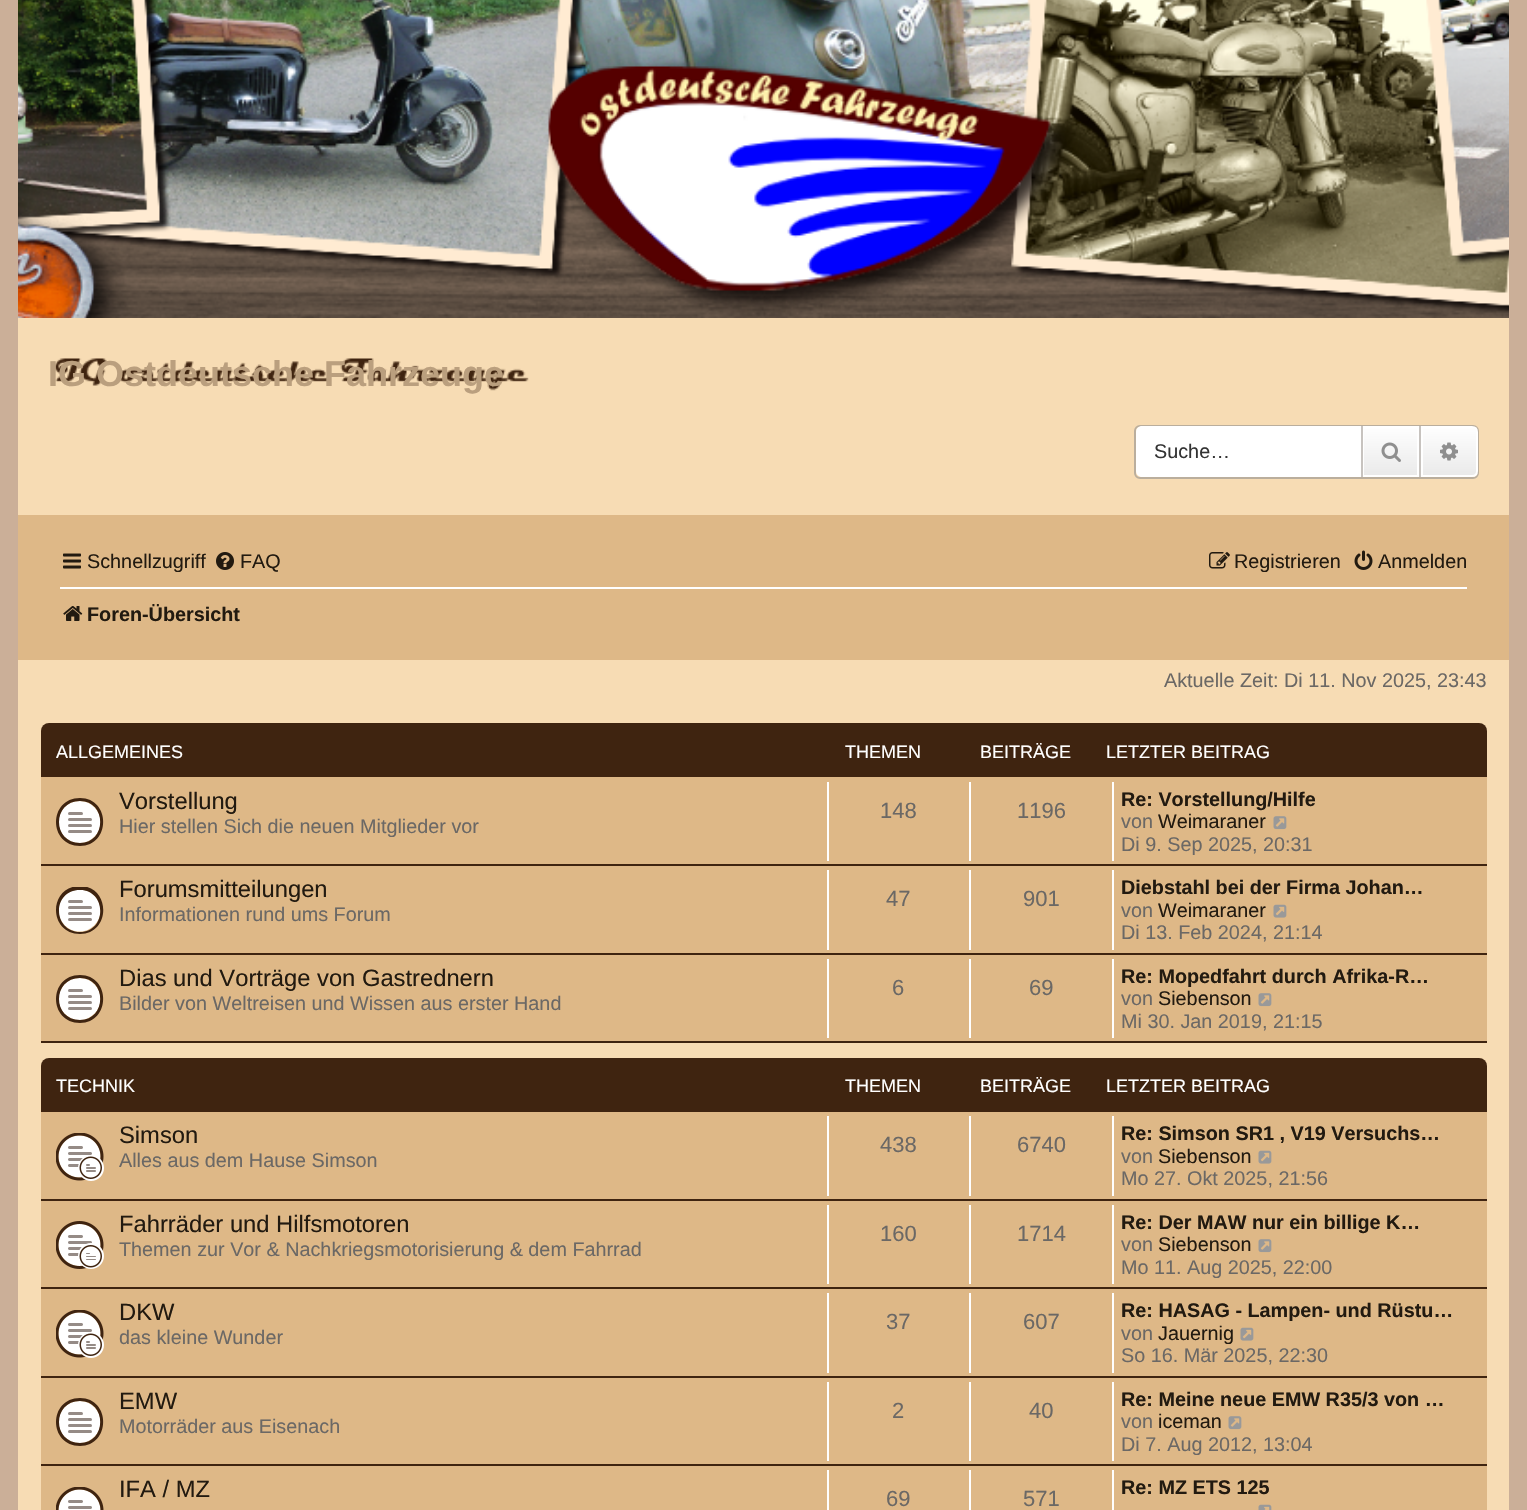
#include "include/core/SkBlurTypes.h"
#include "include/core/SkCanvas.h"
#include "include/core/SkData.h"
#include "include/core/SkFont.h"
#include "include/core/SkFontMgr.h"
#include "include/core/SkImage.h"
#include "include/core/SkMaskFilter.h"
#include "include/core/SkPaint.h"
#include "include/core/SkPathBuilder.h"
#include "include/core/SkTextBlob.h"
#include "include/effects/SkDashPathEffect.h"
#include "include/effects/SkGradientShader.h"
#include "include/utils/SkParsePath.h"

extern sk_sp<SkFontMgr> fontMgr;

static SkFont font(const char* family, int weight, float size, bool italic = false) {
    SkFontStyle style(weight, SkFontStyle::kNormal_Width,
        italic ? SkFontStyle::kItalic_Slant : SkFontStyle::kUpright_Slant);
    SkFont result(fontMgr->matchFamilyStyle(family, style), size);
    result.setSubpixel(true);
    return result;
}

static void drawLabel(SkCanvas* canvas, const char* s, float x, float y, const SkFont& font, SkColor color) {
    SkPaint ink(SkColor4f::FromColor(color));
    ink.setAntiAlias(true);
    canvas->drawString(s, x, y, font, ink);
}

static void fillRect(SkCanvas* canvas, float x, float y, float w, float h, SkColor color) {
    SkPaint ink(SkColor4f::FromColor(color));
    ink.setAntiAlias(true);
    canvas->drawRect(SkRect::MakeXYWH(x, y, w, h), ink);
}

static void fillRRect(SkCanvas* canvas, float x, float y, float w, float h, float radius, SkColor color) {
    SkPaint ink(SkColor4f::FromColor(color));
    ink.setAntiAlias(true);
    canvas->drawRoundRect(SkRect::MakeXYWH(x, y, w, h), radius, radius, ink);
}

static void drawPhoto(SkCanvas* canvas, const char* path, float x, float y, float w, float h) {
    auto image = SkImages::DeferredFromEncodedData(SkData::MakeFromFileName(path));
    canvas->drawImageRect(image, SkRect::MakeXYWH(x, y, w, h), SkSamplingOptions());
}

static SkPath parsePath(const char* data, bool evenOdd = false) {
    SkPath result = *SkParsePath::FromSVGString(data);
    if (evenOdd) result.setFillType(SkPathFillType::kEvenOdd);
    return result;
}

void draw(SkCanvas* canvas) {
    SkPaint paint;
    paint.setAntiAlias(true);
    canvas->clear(0xFFCBAF98);
    fillRect(canvas, 18, 318, 1491, 1192, 0xFFF7DCB4);
    drawPhoto(canvas, "assets/img1.png", 18, 0, 1491, 318);
    drawPhoto(canvas, "assets/img2.png", 55, 358, 474, 33);
    SkFont font1 = font("Liberation Sans", 700, 36);
    drawLabel(canvas, "IG Ostdeutsche Fahrzeuge", 48, 386, font1, 0xFFBA9F7E);
    paint.setStroke(true);
    paint.setStrokeWidth(2);
    paint.setColor(0xFFBAAE9D);
    canvas->drawRoundRect(SkRect::MakeXYWH(1135, 426, 343, 52), 5, 5, paint);
    paint.setStroke(false);
    paint.setColor(0xFFFFFFFF);
    canvas->drawPath(parsePath("M1142 426H1361V477H1142C1138.5 477 1136 474.5 1136 471V432C1136 428.5 1138.5 426 1142 426Z"), paint);
    SkFont font2 = font("Liberation Sans", 400, 19.8f);
    drawLabel(canvas, "Suche…", 1154, 458, font2, 0xFF333333);
    {
        const SkColor colors[] = {0xFFFFFFFF, 0xFFE9E9E9};
        const float stops[] = {0, 1};
        const SkPoint ends[] = {{1391, 426}, {1391, 477}};
        paint.setShader(SkGradientShader::MakeLinear(ends, colors, stops, 2, SkTileMode::kClamp));
        paint.setAlpha(255);
    }
    canvas->drawRect(SkRect::MakeXYWH(1364, 428, 53, 47), paint);
    paint.setStroke(true);
    paint.setShader(nullptr);
    paint.setColor(0xFFFFFFFF);
    canvas->drawRect(SkRect::MakeXYWH(1363, 427, 55, 49), paint);
    fillRect(canvas, 1419, 426, 2, 51, 0xFFC7C3BF);
    fillRect(canvas, 1361, 426, 2, 51, 0xFFC7C3BF);
    drawPhoto(canvas, "assets/img3.png", 1381, 442, 20, 20);
    paint.setStroke(false);
    {
        const SkColor colors[] = {0xFFFFFFFF, 0xFFE9E9E9};
        const float stops[] = {0, 1};
        const SkPoint ends[] = {{1449, 426}, {1449, 477}};
        paint.setShader(SkGradientShader::MakeLinear(ends, colors, stops, 2, SkTileMode::kClamp));
        paint.setAlpha(255);
    }
    canvas->drawPath(parsePath("M1422 427H1472C1475 427 1477 429 1477 432V471C1477 474 1475 476 1472 476H1422Z"), paint);
    paint.setStroke(true);
    paint.setShader(nullptr);
    paint.setColor(0xFFFFFFFF);
    canvas->drawPath(parsePath("M1422 427H1472C1475 427 1477 429 1477 432V471C1477 474 1475 476 1472 476H1422Z"), paint);
    drawPhoto(canvas, "assets/img4.png", 1440, 442, 18, 19);
    fillRect(canvas, 18, 515, 1491, 145, 0xFFDEB887);
    drawPhoto(canvas, "assets/img5.png", 63, 553, 18, 16);
    drawLabel(canvas, "Schnellzugriff", 87, 568, font2, 0xFF221A10);
    drawPhoto(canvas, "assets/img6.png", 216, 552, 18, 18);
    drawLabel(canvas, "FAQ", 240, 568, font2, 0xFF221A10);
    drawPhoto(canvas, "assets/img7.png", 1209, 552, 21, 17);
    drawLabel(canvas, "Registrieren", 1234, 568, font2, 0xFF221A10);
    drawPhoto(canvas, "assets/img8.png", 1354, 550, 19, 20);
    drawLabel(canvas, "Anmelden", 1378, 568, font2, 0xFF221A10);
    fillRect(canvas, 60, 587, 1407, 2, 0xFFFFFFFF);
    drawPhoto(canvas, "assets/img9.png", 63, 606, 20, 15);
    SkFont font3 = font("Liberation Sans", 700, 19.8f);
    drawLabel(canvas, "Foren-Übersicht", 87, 621, font3, 0xFF221A10);
    drawLabel(canvas, "Aktuelle Zeit: Di 11. Nov 2025, 23:43", 1164, 687, font2, 0xFF6B6865);
    fillRRect(canvas, 41, 723, 1446, 320, 8, 0xFF3F2410);
    SkFont font4 = font("Liberation Sans", 400, 18);
    drawLabel(canvas, "ALLGEMEINES", 56, 758, font4, 0xFFFFFFFF);
    drawLabel(canvas, "THEMEN", 845, 758, font4, 0xFFFFFFFF);
    drawLabel(canvas, "BEITRÄGE", 980, 758, font4, 0xFFFFFFFF);
    drawLabel(canvas, "LETZTER BEITRAG", 1106, 758, font4, 0xFFFFFFFF);
    fillRect(canvas, 41, 777, 1446, 264, 0xFFDEB887);
    fillRect(canvas, 41, 864, 1446, 2, 0xFF3F2410);
    paint.setStroke(false);
    canvas->drawCircle(79.5f, 822, 21, paint);
    paint.setColor(0xFF3F2410);
    canvas->drawPath(parsePath("M80 798C111 798 111 846 80 846C48 846 48 798 80 798ZM80 801C52 801 52 843 80 843C107 843 107 801 80 801Z"), paint);
    fillRRect(canvas, 68, 812, 15, 3, 1.5f, 0xFF958B86);
    fillRRect(canvas, 68, 818, 24, 3, 1.5f, 0xFF958B86);
    fillRRect(canvas, 68, 824, 24, 3, 1.5f, 0xFF958B86);
    fillRRect(canvas, 68, 830, 24, 3, 1.5f, 0xFF958B86);
    SkFont font5 = font("Liberation Sans", 400, 23.75f);
    drawLabel(canvas, "Vorstellung", 119, 809, font5, 0xFF221A10);
    drawLabel(canvas, "Hier stellen Sich die neuen Mitglieder vor", 119, 833, font2, 0xFF6B6865);
    fillRect(canvas, 827, 782, 2, 79, 0xFFFFFFFF);
    SkFont font6 = font("Liberation Sans", 400, 22);
    drawLabel(canvas, "148", 880, 818, font6, 0xFF6B6865);
    fillRect(canvas, 969, 782, 2, 79, 0xFFFFFFFF);
    drawLabel(canvas, "1196", 1017, 818, font6, 0xFF6B6865);
    fillRect(canvas, 1112, 782, 2, 79, 0xFFFFFFFF);
    drawLabel(canvas, "Re: Vorstellung/Hilfe", 1121, 806, font3, 0xFF221A10);
    drawLabel(canvas, "von", 1121, 828, font2, 0xFF6B6865);
    drawLabel(canvas, "Weimaraner", 1158, 828, font2, 0xFF221A10);
    drawPhoto(canvas, "assets/img10.png", 1273, 816, 14, 14);
    drawLabel(canvas, "Di 9. Sep 2025, 20:31", 1121, 851, font2, 0xFF6B6865);
    fillRect(canvas, 41, 953, 1446, 2, 0xFF3F2410);
    paint.setColor(0xFFFFFFFF);
    canvas->drawCircle(79.5f, 910.5f, 21, paint);
    canvas->save();
    canvas->clipRect(SkRect::MakeXYWH(56, 887, 48, 48));
    paint.setColor(0xFF3F2410);
    canvas->drawPath(parsePath("M80 886C111 886 111 934 80 934C48 934 48 886 80 886ZM80 890C52 890 52 931 80 932C107 932 107 890 80 890Z"), paint);
    canvas->restore();
    fillRRect(canvas, 68, 900, 15, 3, 1.5f, 0xFF958B86);
    fillRRect(canvas, 68, 906, 24, 3, 1.5f, 0xFF958B86);
    fillRRect(canvas, 68, 912, 24, 3, 1.5f, 0xFF958B86);
    fillRRect(canvas, 68, 918, 24, 3, 1.5f, 0xFF958B86);
    drawLabel(canvas, "Forumsmitteilungen", 119, 897, font5, 0xFF221A10);
    drawLabel(canvas, "Informationen rund ums Forum", 119, 921, font2, 0xFF6B6865);
    fillRect(canvas, 827, 870, 2, 80, 0xFFFFFFFF);
    drawLabel(canvas, "47", 886, 906, font6, 0xFF6B6865);
    fillRect(canvas, 969, 870, 2, 80, 0xFFFFFFFF);
    drawLabel(canvas, "901", 1023, 906, font6, 0xFF6B6865);
    fillRect(canvas, 1112, 870, 2, 80, 0xFFFFFFFF);
    drawLabel(canvas, "Diebstahl bei der Firma Johan…", 1121, 894, font3, 0xFF221A10);
    drawLabel(canvas, "von", 1121, 917, font2, 0xFF6B6865);
    drawLabel(canvas, "Weimaraner", 1158, 917, font2, 0xFF221A10);
    drawPhoto(canvas, "assets/img11.png", 1273, 904, 14, 14);
    drawLabel(canvas, "Di 13. Feb 2024, 21:14", 1121, 939, font2, 0xFF6B6865);
    fillRect(canvas, 41, 1041, 1446, 2, 0xFF3F2410);
    paint.setColor(0xFFFFFFFF);
    canvas->drawCircle(79.5f, 999, 21, paint);
    paint.setColor(0xFF3F2410);
    canvas->drawPath(parsePath("M80 975C111 975 111 1023 80 1023C48 1023 48 975 80 975ZM80 978C52 978 52 1020 80 1020C107 1020 107 978 80 978Z"), paint);
    fillRRect(canvas, 68, 989, 15, 3, 1.5f, 0xFF958B86);
    fillRRect(canvas, 68, 995, 24, 3, 1.5f, 0xFF958B86);
    fillRRect(canvas, 68, 1001, 24, 3, 1.5f, 0xFF958B86);
    fillRRect(canvas, 68, 1007, 24, 3, 1.5f, 0xFF958B86);
    drawLabel(canvas, "Dias und Vorträge von Gastrednern", 119, 986, font5, 0xFF221A10);
    drawLabel(canvas, "Bilder von Weltreisen und Wissen aus erster Hand", 119, 1010, font2, 0xFF6B6865);
    fillRect(canvas, 827, 959, 2, 79, 0xFFFFFFFF);
    drawLabel(canvas, "6", 892, 995, font6, 0xFF6B6865);
    fillRect(canvas, 969, 959, 2, 79, 0xFFFFFFFF);
    drawLabel(canvas, "69", 1029, 995, font6, 0xFF6B6865);
    fillRect(canvas, 1112, 959, 2, 79, 0xFFFFFFFF);
    drawLabel(canvas, "Re: Mopedfahrt durch Afrika-R…", 1121, 983, font3, 0xFF221A10);
    drawLabel(canvas, "von", 1121, 1005, font2, 0xFF6B6865);
    drawLabel(canvas, "Siebenson", 1158, 1005, font2, 0xFF221A10);
    drawPhoto(canvas, "assets/img10.png", 1258, 993, 14, 14);
    drawLabel(canvas, "Mi 30. Jan 2019, 21:15", 1121, 1028, font2, 0xFF6B6865);
    fillRRect(canvas, 41, 1058, 1446, 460, 8, 0xFF3F2410);
    drawLabel(canvas, "TECHNIK", 56, 1092, font4, 0xFFFFFFFF);
    drawLabel(canvas, "THEMEN", 845, 1092, font4, 0xFFFFFFFF);
    drawLabel(canvas, "BEITRÄGE", 980, 1092, font4, 0xFFFFFFFF);
    drawLabel(canvas, "LETZTER BEITRAG", 1106, 1092, font4, 0xFFFFFFFF);
    fillRect(canvas, 41, 1112, 1446, 398, 0xFFDEB887);
    fillRect(canvas, 41, 1199, 1446, 2, 0xFF3F2410);
    drawPhoto(canvas, "assets/img12.png", 56, 1133, 48, 48);
    drawLabel(canvas, "Simson", 119, 1143, font5, 0xFF221A10);
    drawLabel(canvas, "Alles aus dem Hause Simson", 119, 1167, font2, 0xFF6B6865);
    fillRect(canvas, 827, 1116, 2, 80, 0xFFFFFFFF);
    drawLabel(canvas, "438", 880, 1152, font6, 0xFF6B6865);
    fillRect(canvas, 969, 1116, 2, 80, 0xFFFFFFFF);
    drawLabel(canvas, "6740", 1017, 1152, font6, 0xFF6B6865);
    fillRect(canvas, 1112, 1116, 2, 80, 0xFFFFFFFF);
    drawLabel(canvas, "Re: Simson SR1 , V19 Versuchs…", 1121, 1140, font3, 0xFF221A10);
    drawLabel(canvas, "von", 1121, 1163, font2, 0xFF6B6865);
    drawLabel(canvas, "Siebenson", 1158, 1163, font2, 0xFF221A10);
    drawPhoto(canvas, "assets/img11.png", 1258, 1150, 14, 14);
    drawLabel(canvas, "Mo 27. Okt 2025, 21:56", 1121, 1185, font2, 0xFF6B6865);
    fillRect(canvas, 41, 1287, 1446, 2, 0xFF3F2410);
    drawPhoto(canvas, "assets/img13.png", 56, 1221, 48, 48);
    drawLabel(canvas, "Fahrräder und Hilfsmotoren", 119, 1232, font5, 0xFF221A10);
    drawLabel(canvas, "Themen zur Vor & Nachkriegsmotorisierung & dem Fahrrad", 119, 1256, font2, 0xFF6B6865);
    fillRect(canvas, 827, 1205, 2, 79, 0xFFFFFFFF);
    drawLabel(canvas, "160", 880, 1241, font6, 0xFF6B6865);
    fillRect(canvas, 969, 1205, 2, 79, 0xFFFFFFFF);
    drawLabel(canvas, "1714", 1017, 1241, font6, 0xFF6B6865);
    fillRect(canvas, 1112, 1205, 2, 79, 0xFFFFFFFF);
    drawLabel(canvas, "Re: Der MAW nur ein billige K…", 1121, 1229, font3, 0xFF221A10);
    drawLabel(canvas, "von", 1121, 1251, font2, 0xFF6B6865);
    drawLabel(canvas, "Siebenson", 1158, 1251, font2, 0xFF221A10);
    drawPhoto(canvas, "assets/img10.png", 1258, 1239, 14, 14);
    drawLabel(canvas, "Mo 11. Aug 2025, 22:00", 1121, 1274, font2, 0xFF6B6865);
    fillRect(canvas, 41, 1376, 1446, 2, 0xFF3F2410);
    drawPhoto(canvas, "assets/img12.png", 56, 1310, 48, 48);
    drawLabel(canvas, "DKW", 119, 1320, font5, 0xFF221A10);
    drawLabel(canvas, "das kleine Wunder", 119, 1344, font2, 0xFF6B6865);
    fillRect(canvas, 827, 1293, 2, 80, 0xFFFFFFFF);
    drawLabel(canvas, "37", 886, 1329, font6, 0xFF6B6865);
    fillRect(canvas, 969, 1293, 2, 80, 0xFFFFFFFF);
    drawLabel(canvas, "607", 1023, 1329, font6, 0xFF6B6865);
    fillRect(canvas, 1112, 1293, 2, 80, 0xFFFFFFFF);
    drawLabel(canvas, "Re: HASAG - Lampen- und Rüstu…", 1121, 1317, font3, 0xFF221A10);
    drawLabel(canvas, "von", 1121, 1340, font2, 0xFF6B6865);
    drawLabel(canvas, "Jauernig", 1158, 1340, font2, 0xFF221A10);
    drawPhoto(canvas, "assets/img11.png", 1240, 1327, 14, 14);
    drawLabel(canvas, "So 16. Mär 2025, 22:30", 1121, 1362, font2, 0xFF6B6865);
    fillRect(canvas, 41, 1464, 1446, 2, 0xFF3F2410);
    paint.setColor(0xFFFFFFFF);
    canvas->drawCircle(79.5f, 1422, 21, paint);
    paint.setColor(0xFF3F2410);
    canvas->drawPath(parsePath("M80 1398C111 1398 111 1446 80 1446C48 1446 48 1398 80 1398ZM80 1401C52 1401 52 1443 80 1443C107 1443 107 1401 80 1401Z"), paint);
    fillRRect(canvas, 68, 1412, 15, 3, 1.5f, 0xFF958B86);
    fillRRect(canvas, 68, 1418, 24, 3, 1.5f, 0xFF958B86);
    fillRRect(canvas, 68, 1424, 24, 3, 1.5f, 0xFF958B86);
    fillRRect(canvas, 68, 1430, 24, 3, 1.5f, 0xFF958B86);
    drawLabel(canvas, "EMW", 119, 1409, font5, 0xFF221A10);
    drawLabel(canvas, "Motorräder aus Eisenach", 119, 1433, font2, 0xFF6B6865);
    fillRect(canvas, 827, 1382, 2, 79, 0xFFFFFFFF);
    drawLabel(canvas, "2", 892, 1418, font6, 0xFF6B6865);
    fillRect(canvas, 969, 1382, 2, 79, 0xFFFFFFFF);
    drawLabel(canvas, "40", 1029, 1418, font6, 0xFF6B6865);
    fillRect(canvas, 1112, 1382, 2, 79, 0xFFFFFFFF);
    drawLabel(canvas, "Re: Meine neue EMW R35/3 von …", 1121, 1406, font3, 0xFF221A10);
    drawLabel(canvas, "von", 1121, 1428, font2, 0xFF6B6865);
    drawLabel(canvas, "iceman", 1158, 1428, font2, 0xFF221A10);
    drawPhoto(canvas, "assets/img10.png", 1228, 1416, 14, 14);
    drawLabel(canvas, "Di 7. Aug 2012, 13:04", 1121, 1451, font2, 0xFF6B6865);
    drawPhoto(canvas, "assets/img14.png", 56, 1487, 48, 23);
    drawLabel(canvas, "IFA / MZ", 119, 1497, font5, 0xFF221A10);
    fillRect(canvas, 1112, 1470, 2, 40, 0xFFFFFFFF);
    drawLabel(canvas, "Re: MZ ETS 125", 1121, 1494, font3, 0xFF221A10);
    drawPhoto(canvas, "assets/img15.png", 1258, 1504, 14, 6);
    fillRect(canvas, 827, 1470, 2, 40, 0xFFFFFFFF);
    drawLabel(canvas, "69", 886, 1506, font6, 0xFF6B6865);
    fillRect(canvas, 969, 1470, 2, 40, 0xFFFFFFFF);
    drawLabel(canvas, "571", 1023, 1506, font6, 0xFF6B6865);
}
